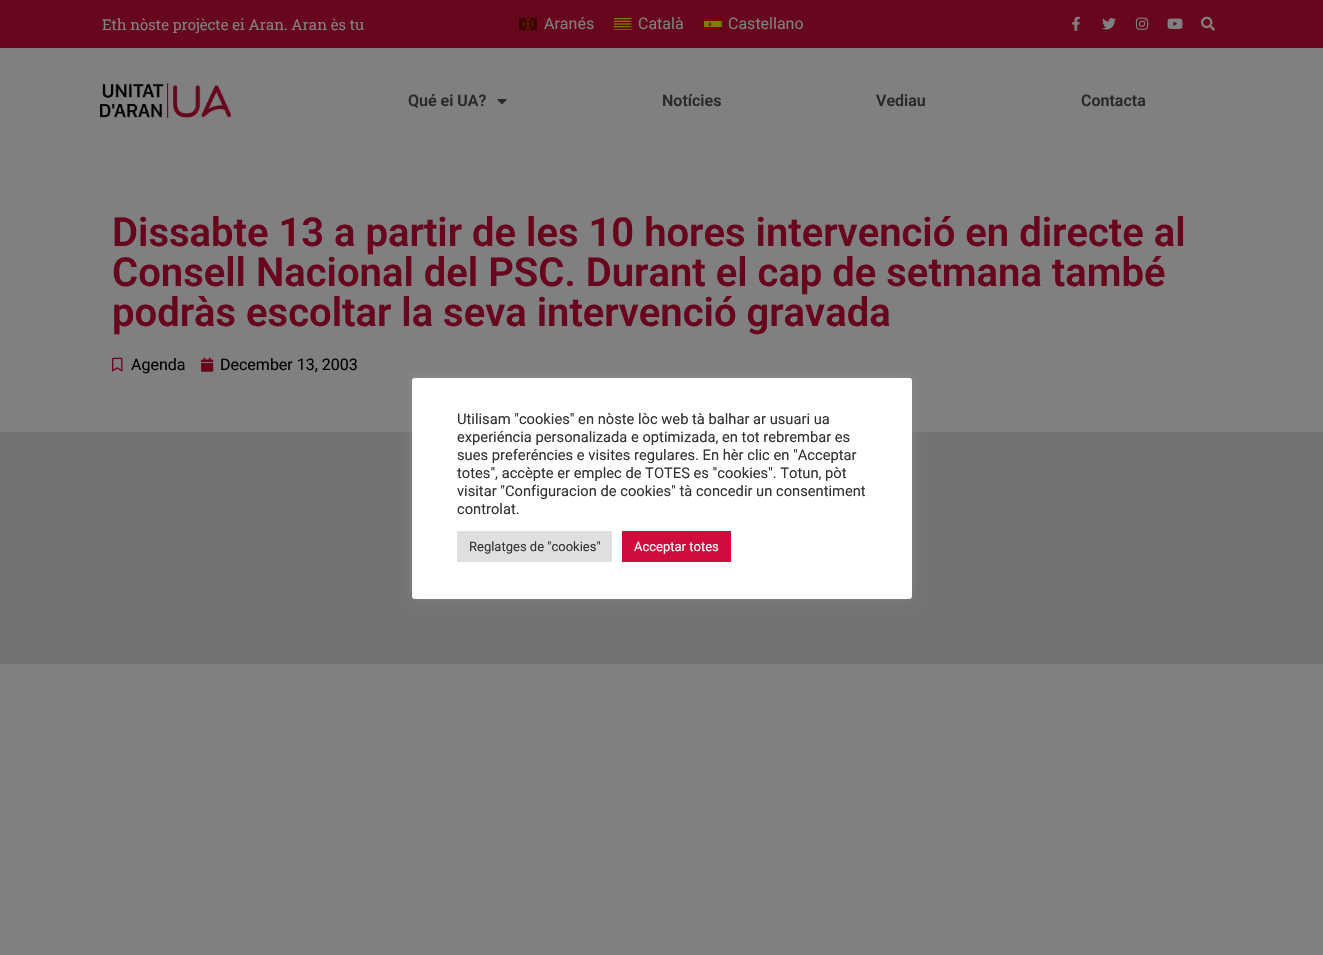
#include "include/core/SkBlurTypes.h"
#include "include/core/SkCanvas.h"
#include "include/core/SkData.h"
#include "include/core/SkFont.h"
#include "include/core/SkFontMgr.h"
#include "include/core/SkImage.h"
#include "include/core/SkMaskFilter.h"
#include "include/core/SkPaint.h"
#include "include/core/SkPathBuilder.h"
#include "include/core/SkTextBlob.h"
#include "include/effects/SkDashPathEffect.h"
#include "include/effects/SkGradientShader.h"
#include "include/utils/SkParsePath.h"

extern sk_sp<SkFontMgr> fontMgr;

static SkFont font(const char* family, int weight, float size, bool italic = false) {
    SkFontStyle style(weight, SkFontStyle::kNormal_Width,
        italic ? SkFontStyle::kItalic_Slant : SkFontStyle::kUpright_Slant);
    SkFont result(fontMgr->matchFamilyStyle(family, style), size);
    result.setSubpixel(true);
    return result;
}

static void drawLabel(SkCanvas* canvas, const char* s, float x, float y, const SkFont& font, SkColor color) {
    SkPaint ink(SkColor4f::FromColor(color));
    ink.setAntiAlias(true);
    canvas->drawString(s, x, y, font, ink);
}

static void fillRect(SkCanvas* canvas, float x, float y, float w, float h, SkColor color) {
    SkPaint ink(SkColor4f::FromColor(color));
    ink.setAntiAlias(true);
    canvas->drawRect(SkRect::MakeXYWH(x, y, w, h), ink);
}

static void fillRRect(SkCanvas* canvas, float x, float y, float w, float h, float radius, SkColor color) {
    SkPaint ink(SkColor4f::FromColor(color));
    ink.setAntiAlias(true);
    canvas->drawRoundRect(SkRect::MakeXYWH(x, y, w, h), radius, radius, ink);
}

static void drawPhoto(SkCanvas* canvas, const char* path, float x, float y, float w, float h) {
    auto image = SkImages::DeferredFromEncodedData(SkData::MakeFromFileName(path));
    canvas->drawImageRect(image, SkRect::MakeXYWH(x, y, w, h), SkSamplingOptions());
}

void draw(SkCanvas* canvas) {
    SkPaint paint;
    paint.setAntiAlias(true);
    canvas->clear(0xFF808080);
    fillRect(canvas, 0, 0, 1323, 48, 0xFF68061E);
    SkFont font1 = font("Roboto Slab", 400, 15);
    drawLabel(canvas, "Eth nòste projècte ei Aran. Aran ès tu", 102, 30, font1, 0xFF808080);
    drawPhoto(canvas, "assets/img1.png", 519, 18, 18, 12);
    SkFont font2 = font("Roboto", 400, 16);
    drawLabel(canvas, "Aranés", 544, 29, font2, 0xFF808080);
    drawPhoto(canvas, "assets/img2.png", 614, 18, 18, 12);
    drawLabel(canvas, "Català", 638, 29, font2, 0xFF808080);
    drawPhoto(canvas, "assets/img3.png", 704, 18, 18, 12);
    drawLabel(canvas, "Castellano", 728, 29, font2, 0xFF808080);
    drawPhoto(canvas, "assets/img4.png", 1072, 16, 8, 15);
    drawPhoto(canvas, "assets/img5.png", 1102, 18, 14, 12);
    drawPhoto(canvas, "assets/img6.png", 1135, 17, 14, 13);
    drawPhoto(canvas, "assets/img7.png", 1167, 18, 16, 11);
    drawPhoto(canvas, "assets/img8.png", 1201, 16, 14, 15);
    drawPhoto(canvas, "assets/img9.png", 100, 83, 131, 35);
    SkFont font3 = font("Roboto", 600, 16);
    drawLabel(canvas, "Qué ei UA?", 408, 106, font3, 0xFF292929);
    drawPhoto(canvas, "assets/img10.png", 497, 99, 10, 6);
    drawLabel(canvas, "Notícies", 662, 106, font3, 0xFF292929);
    drawLabel(canvas, "Vediau", 876, 106, font3, 0xFF292929);
    drawLabel(canvas, "Contacta", 1081, 106, font3, 0xFF292929);
    SkFont font4 = font("Roboto", 600, 40);
    drawLabel(canvas, "Dissabte 13 a partir de les 10 hores intervenció en directe al", 112, 246, font4, 0xFF68061E);
    drawLabel(canvas, "Consell Nacional del PSC. Durant el cap de setmana també", 112, 286, font4, 0xFF68061E);
    drawLabel(canvas, "podràs escoltar la seva intervenció gravada", 112, 326, font4, 0xFF68061E);
    drawPhoto(canvas, "assets/img11.png", 112, 357, 11, 15);
    drawLabel(canvas, "Agenda", 131, 370, font2, 0xFF000000);
    drawPhoto(canvas, "assets/img12.png", 201, 357, 13, 15);
    drawLabel(canvas, "December 13, 2003", 220, 370, font2, 0xFF000000);
    fillRect(canvas, 0, 432, 1323, 232, 0xFF737373);
    paint.setColor(0x4DACABAB);
    paint.setMaskFilter(SkMaskFilter::MakeBlur(kNormal_SkBlurStyle, 5));
    canvas->drawRoundRect(SkRect::MakeXYWH(412, 377, 500, 221), 3, 3, paint);
    paint.setMaskFilter(nullptr);
    fillRRect(canvas, 412, 378, 500, 221, 3, 0xFFFFFFFF);
    SkFont font5 = font("Roboto", 400, 14.7f);
    drawLabel(canvas, "Utilisam \"cookies\" en nòste lòc web tà balhar ar usuari ua", 457, 424, font5, 0xFF333333);
    drawLabel(canvas, "experiéncia personalizada e optimizada, en tot rebrembar es", 457, 442, font5, 0xFF333333);
    drawLabel(canvas, "sues preferéncies e visites regulares. En hèr clic en \"Acceptar", 457, 460, font5, 0xFF333333);
    drawLabel(canvas, "totes\", accèpte er emplec de TOTES es \"cookies\". Totun, pòt", 457, 478, font5, 0xFF333333);
    drawLabel(canvas, "visitar \"Configuracion de cookies\" tà concedir un consentiment", 457, 496, font5, 0xFF333333);
    drawLabel(canvas, "controlat.", 457, 514, font5, 0xFF333333);
    fillRect(canvas, 457, 531, 155, 31, 0xFFDEDFE0);
    SkFont font6 = font("Roboto", 400, 13);
    drawLabel(canvas, "Reglatges de \"cookies\"", 469, 551, font6, 0xFF333333);
    fillRect(canvas, 622, 531, 109, 31, 0xFFD00C3C);
    drawLabel(canvas, "Acceptar totes", 634, 551, font6, 0xFFFFFFFF);
}
